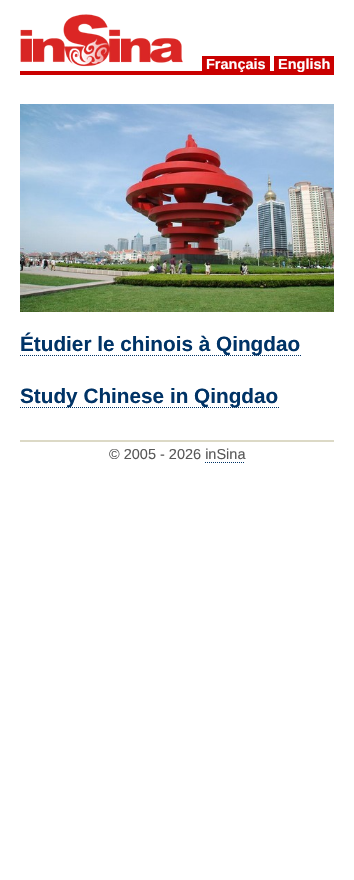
#include "include/core/SkBlurTypes.h"
#include "include/core/SkCanvas.h"
#include "include/core/SkData.h"
#include "include/core/SkFont.h"
#include "include/core/SkFontMgr.h"
#include "include/core/SkImage.h"
#include "include/core/SkMaskFilter.h"
#include "include/core/SkPaint.h"
#include "include/core/SkPathBuilder.h"
#include "include/core/SkTextBlob.h"
#include "include/effects/SkDashPathEffect.h"
#include "include/effects/SkGradientShader.h"
#include "include/utils/SkParsePath.h"

extern sk_sp<SkFontMgr> fontMgr;

static SkFont font(const char* family, int weight, float size, bool italic = false) {
    SkFontStyle style(weight, SkFontStyle::kNormal_Width,
        italic ? SkFontStyle::kItalic_Slant : SkFontStyle::kUpright_Slant);
    SkFont result(fontMgr->matchFamilyStyle(family, style), size);
    result.setSubpixel(true);
    return result;
}

static void drawLabel(SkCanvas* canvas, const char* s, float x, float y, const SkFont& font, SkColor color) {
    SkPaint ink(SkColor4f::FromColor(color));
    ink.setAntiAlias(true);
    canvas->drawString(s, x, y, font, ink);
}

static void fillRect(SkCanvas* canvas, float x, float y, float w, float h, SkColor color) {
    SkPaint ink(SkColor4f::FromColor(color));
    ink.setAntiAlias(true);
    canvas->drawRect(SkRect::MakeXYWH(x, y, w, h), ink);
}

static void drawPhoto(SkCanvas* canvas, const char* path, float x, float y, float w, float h) {
    auto image = SkImages::DeferredFromEncodedData(SkData::MakeFromFileName(path));
    canvas->drawImageRect(image, SkRect::MakeXYWH(x, y, w, h), SkSamplingOptions());
}

static SkPath parsePath(const char* data, bool evenOdd = false) {
    SkPath result = *SkParsePath::FromSVGString(data);
    if (evenOdd) result.setFillType(SkPathFillType::kEvenOdd);
    return result;
}

void draw(SkCanvas* canvas) {
    SkPaint paint;
    paint.setAntiAlias(true);
    canvas->clear(0xFFFFFFFF);
    fillRect(canvas, 20, 71, 314, 4, 0xFFCA0000);
    drawPhoto(canvas, "assets/img1.png", 20, 14, 163, 53);
    fillRect(canvas, 202, 56, 68, 15, 0xFFCA0000);
    SkFont font1 = font("Liberation Sans", 700, 14.5f);
    drawLabel(canvas, "Français", 206, 69, font1, 0xFFFFFFFF);
    fillRect(canvas, 274, 56, 60, 15, 0xFFCA0000);
    drawLabel(canvas, "English", 278, 69, font1, 0xFFFFFFFF);
    drawPhoto(canvas, "assets/img2.png", 20, 104, 314, 208);
    paint.setStroke(true);
    paint.setStrokeWidth(1);
    paint.setColor(0xFF003366);
    paint.setPathEffect(SkDashPathEffect::Make({{1, 1}}, 0));
    canvas->drawPath(parsePath("M20 355.5H301"), paint);
    paint.setPathEffect(nullptr);
    SkFont font2 = font("Liberation Sans", 700, 20.75f);
    drawLabel(canvas, "Étudier le chinois à Qingdao", 20, 351, font2, 0xFF003366);
    paint.setPathEffect(SkDashPathEffect::Make({{1, 1}}, 0));
    canvas->drawPath(parsePath("M20 407.5H279"), paint);
    paint.setPathEffect(nullptr);
    drawLabel(canvas, "Study Chinese in Qingdao", 20, 403, font2, 0xFF003366);
    fillRect(canvas, 20, 440, 314, 2, 0xFFDCD9C6);
    SkFont font3 = font("Liberation Sans", 400, 14.5f);
    drawLabel(canvas, "© 2005 - 2026 inSina", 109, 459, font3, 0xFF585858);
    paint.setPathEffect(SkDashPathEffect::Make({{1, 1}}, 0));
    canvas->drawPath(parsePath("M205 462.5H245"), paint);
    paint.setPathEffect(nullptr);
}
